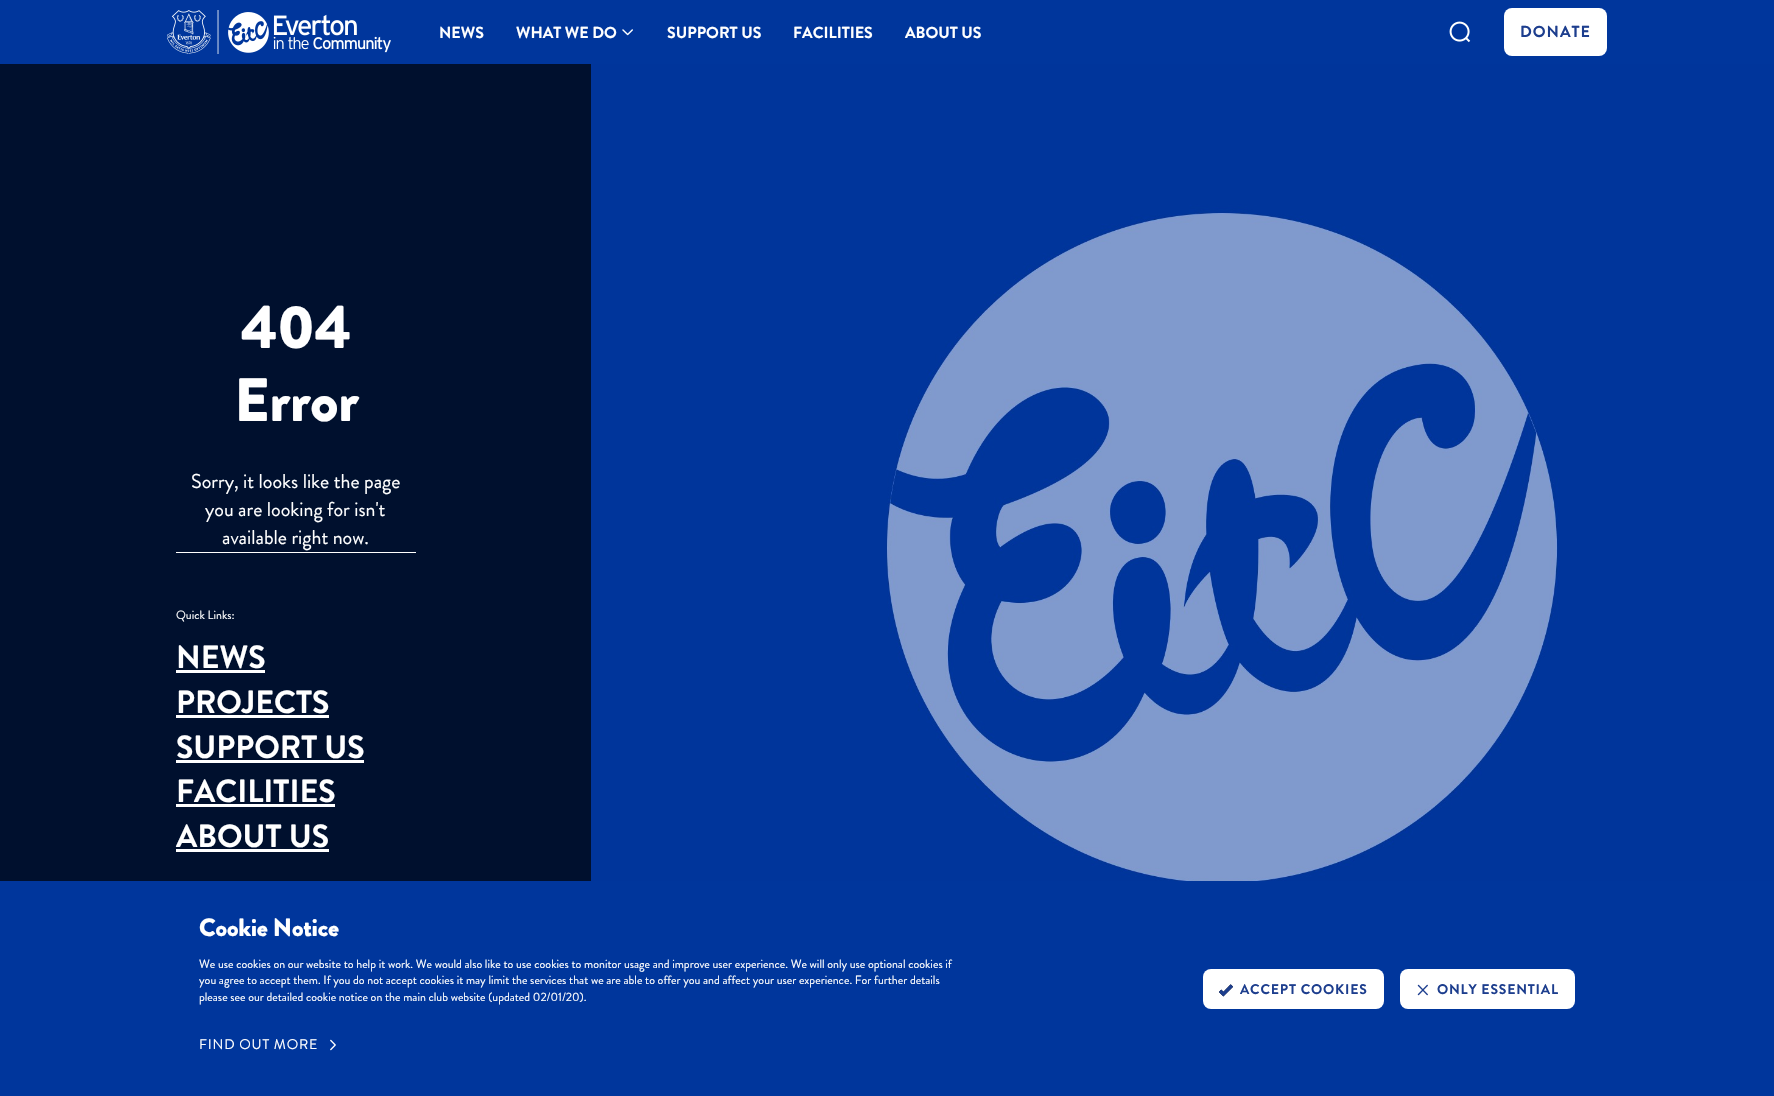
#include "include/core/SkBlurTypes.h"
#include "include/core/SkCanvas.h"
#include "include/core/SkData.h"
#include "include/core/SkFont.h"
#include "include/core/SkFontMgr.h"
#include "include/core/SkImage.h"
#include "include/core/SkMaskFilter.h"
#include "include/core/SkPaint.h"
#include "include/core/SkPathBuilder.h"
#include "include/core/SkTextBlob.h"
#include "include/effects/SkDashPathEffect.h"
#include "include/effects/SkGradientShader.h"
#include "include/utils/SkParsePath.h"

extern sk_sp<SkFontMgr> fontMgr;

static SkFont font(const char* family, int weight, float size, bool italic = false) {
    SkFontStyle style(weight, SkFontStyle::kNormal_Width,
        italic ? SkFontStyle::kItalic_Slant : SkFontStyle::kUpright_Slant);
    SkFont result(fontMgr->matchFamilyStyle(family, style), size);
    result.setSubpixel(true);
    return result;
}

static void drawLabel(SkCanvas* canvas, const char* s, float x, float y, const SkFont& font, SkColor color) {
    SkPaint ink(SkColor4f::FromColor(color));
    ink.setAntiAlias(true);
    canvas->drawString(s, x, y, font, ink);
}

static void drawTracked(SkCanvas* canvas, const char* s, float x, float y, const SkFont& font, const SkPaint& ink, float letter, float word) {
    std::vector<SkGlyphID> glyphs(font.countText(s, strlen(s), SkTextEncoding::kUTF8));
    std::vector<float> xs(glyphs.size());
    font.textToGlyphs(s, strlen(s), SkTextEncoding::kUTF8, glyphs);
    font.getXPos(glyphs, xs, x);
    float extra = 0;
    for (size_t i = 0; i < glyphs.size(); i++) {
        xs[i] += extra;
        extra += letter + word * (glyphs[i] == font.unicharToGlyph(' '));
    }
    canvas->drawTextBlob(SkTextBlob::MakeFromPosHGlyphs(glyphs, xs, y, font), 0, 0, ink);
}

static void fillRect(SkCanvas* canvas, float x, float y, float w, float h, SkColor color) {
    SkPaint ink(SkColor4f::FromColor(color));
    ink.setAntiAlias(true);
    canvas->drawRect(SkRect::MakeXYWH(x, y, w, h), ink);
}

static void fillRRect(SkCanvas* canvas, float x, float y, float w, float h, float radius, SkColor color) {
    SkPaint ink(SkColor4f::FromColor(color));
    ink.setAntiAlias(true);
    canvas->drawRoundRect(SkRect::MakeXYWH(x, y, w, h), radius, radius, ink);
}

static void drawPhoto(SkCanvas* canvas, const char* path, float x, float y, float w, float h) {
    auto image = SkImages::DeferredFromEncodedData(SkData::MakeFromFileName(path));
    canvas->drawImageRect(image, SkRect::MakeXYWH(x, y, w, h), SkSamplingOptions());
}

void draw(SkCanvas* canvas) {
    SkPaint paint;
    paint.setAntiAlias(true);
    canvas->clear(0xFFFFFFFF);
    fillRect(canvas, 0, 0, 1774, 64, 0xFF00369C);
    drawPhoto(canvas, "assets/img1.png", 167, 10, 224, 44);
    SkFont font1 = font("Brandon Grotesque", 700, 16);
    drawLabel(canvas, "NEWS", 439, 38, font1, 0xFFFFFFFF);
    drawLabel(canvas, "WHAT WE DO", 516, 38, font1, 0xFFFFFFFF);
    drawPhoto(canvas, "assets/img2.png", 622, 29, 11, 7);
    drawLabel(canvas, "SUPPORT US", 667, 38, font1, 0xFFFFFFFF);
    drawLabel(canvas, "FACILITIES", 793, 38, font1, 0xFFFFFFFF);
    drawLabel(canvas, "ABOUT US", 905, 38, font1, 0xFFFFFFFF);
    drawPhoto(canvas, "assets/img3.png", 1449, 21, 22, 22);
    fillRRect(canvas, 1504, 8, 103, 48, 8, 0xFFFFFFFF);
    paint.setColor(0xFF1D3E8E);
    drawTracked(canvas, "DONATE", 1520, 37, font1, paint, 1, 0);
    drawPhoto(canvas, "assets/img4.png", 591, 64, 1183, 817);
    fillRect(canvas, 0, 64, 591, 817, 0xFF00102E);
    SkFont font2 = font("Brandon Grotesque", 900, 61);
    paint.setColor(0xFFFFFFFF);
    drawTracked(canvas, "404", 241, 348, font2, paint, -0.5f, 0);
    drawTracked(canvas, "Error", 234, 421, font2, paint, -0.5f, 0);
    fillRect(canvas, 176, 552, 240, 1, 0xFFFFFFFF);
    SkFont font3 = font("Brandon Grotesque", 400, 20);
    drawLabel(canvas, "Sorry, it looks like the page", 191, 488, font3, 0xFFFFFFFF);
    drawLabel(canvas, "you are looking for isn't", 205, 516, font3, 0xFFFFFFFF);
    drawLabel(canvas, "available right now.", 222, 544, font3, 0xFFFFFFFF);
    SkFont font4 = font("Brandon Grotesque", 400, 12);
    drawLabel(canvas, "Quick Links:", 176, 619, font4, 0xFFFFFFFF);
    SkFont font5 = font("Brandon Grotesque", 700, 32);
    drawLabel(canvas, "NEWS", 176, 668, font5, 0xFFFFFFFF);
    fillRect(canvas, 176, 670, 89, 3, 0xFFFFFFFF);
    drawLabel(canvas, "PROJECTS", 176, 713, font5, 0xFFFFFFFF);
    fillRect(canvas, 176, 715, 153, 3, 0xFFFFFFFF);
    drawLabel(canvas, "SUPPORT US", 176, 758, font5, 0xFFFFFFFF);
    fillRect(canvas, 176, 760, 188, 3, 0xFFFFFFFF);
    drawLabel(canvas, "FACILITIES", 176, 802, font5, 0xFFFFFFFF);
    fillRect(canvas, 176, 804, 159, 3, 0xFFFFFFFF);
    drawLabel(canvas, "ABOUT US", 176, 847, font5, 0xFFFFFFFF);
    fillRect(canvas, 176, 849, 153, 3, 0xFFFFFFFF);
    fillRect(canvas, 0, 881, 1774, 215, 0xFF00369C);
    SkFont font6 = font("Brandon Grotesque", 900, 25);
    drawTracked(canvas, "Cookie Notice", 199, 936, font6, paint, -0.25f, 0);
    drawLabel(canvas, "We use cookies on our website to help it work. We would also like to use cookies to monitor usage and improve user experience. We will only use optional cookies if", 199, 968, font4, 0xFFFFFFFF);
    drawLabel(canvas, "you agree to accept them. If you do not accept cookies it may limit the services that we are able to offer you and affect your user experience. For further details", 199, 984, font4, 0xFFFFFFFF);
    drawLabel(canvas, "please see our detailed cookie notice on the main club website (updated 02/01/20).", 199, 1001, font4, 0xFFFFFFFF);
    SkFont font7 = font("Brandon Grotesque", 400, 14);
    drawTracked(canvas, "FIND OUT MORE", 199, 1049, font7, paint, 0.8f, 0);
    drawPhoto(canvas, "assets/img5.png", 330, 1039, 6, 12);
    fillRRect(canvas, 1203, 969, 181, 40, 8, 0xFFFFFFFF);
    drawPhoto(canvas, "assets/img6.png", 1219, 984, 14, 13);
    SkFont font8 = font("Brandon Grotesque", 700, 14);
    paint.setColor(0xFF1D3E8E);
    drawTracked(canvas, "ACCEPT COOKIES", 1240, 994, font8, paint, 0.8f, 0);
    fillRRect(canvas, 1400, 969, 175, 40, 8, 0xFFFFFFFF);
    drawPhoto(canvas, "assets/img7.png", 1417, 984, 11, 12);
    drawTracked(canvas, "ONLY ESSENTIAL", 1437, 994, font8, paint, 0.8f, 0);
}
